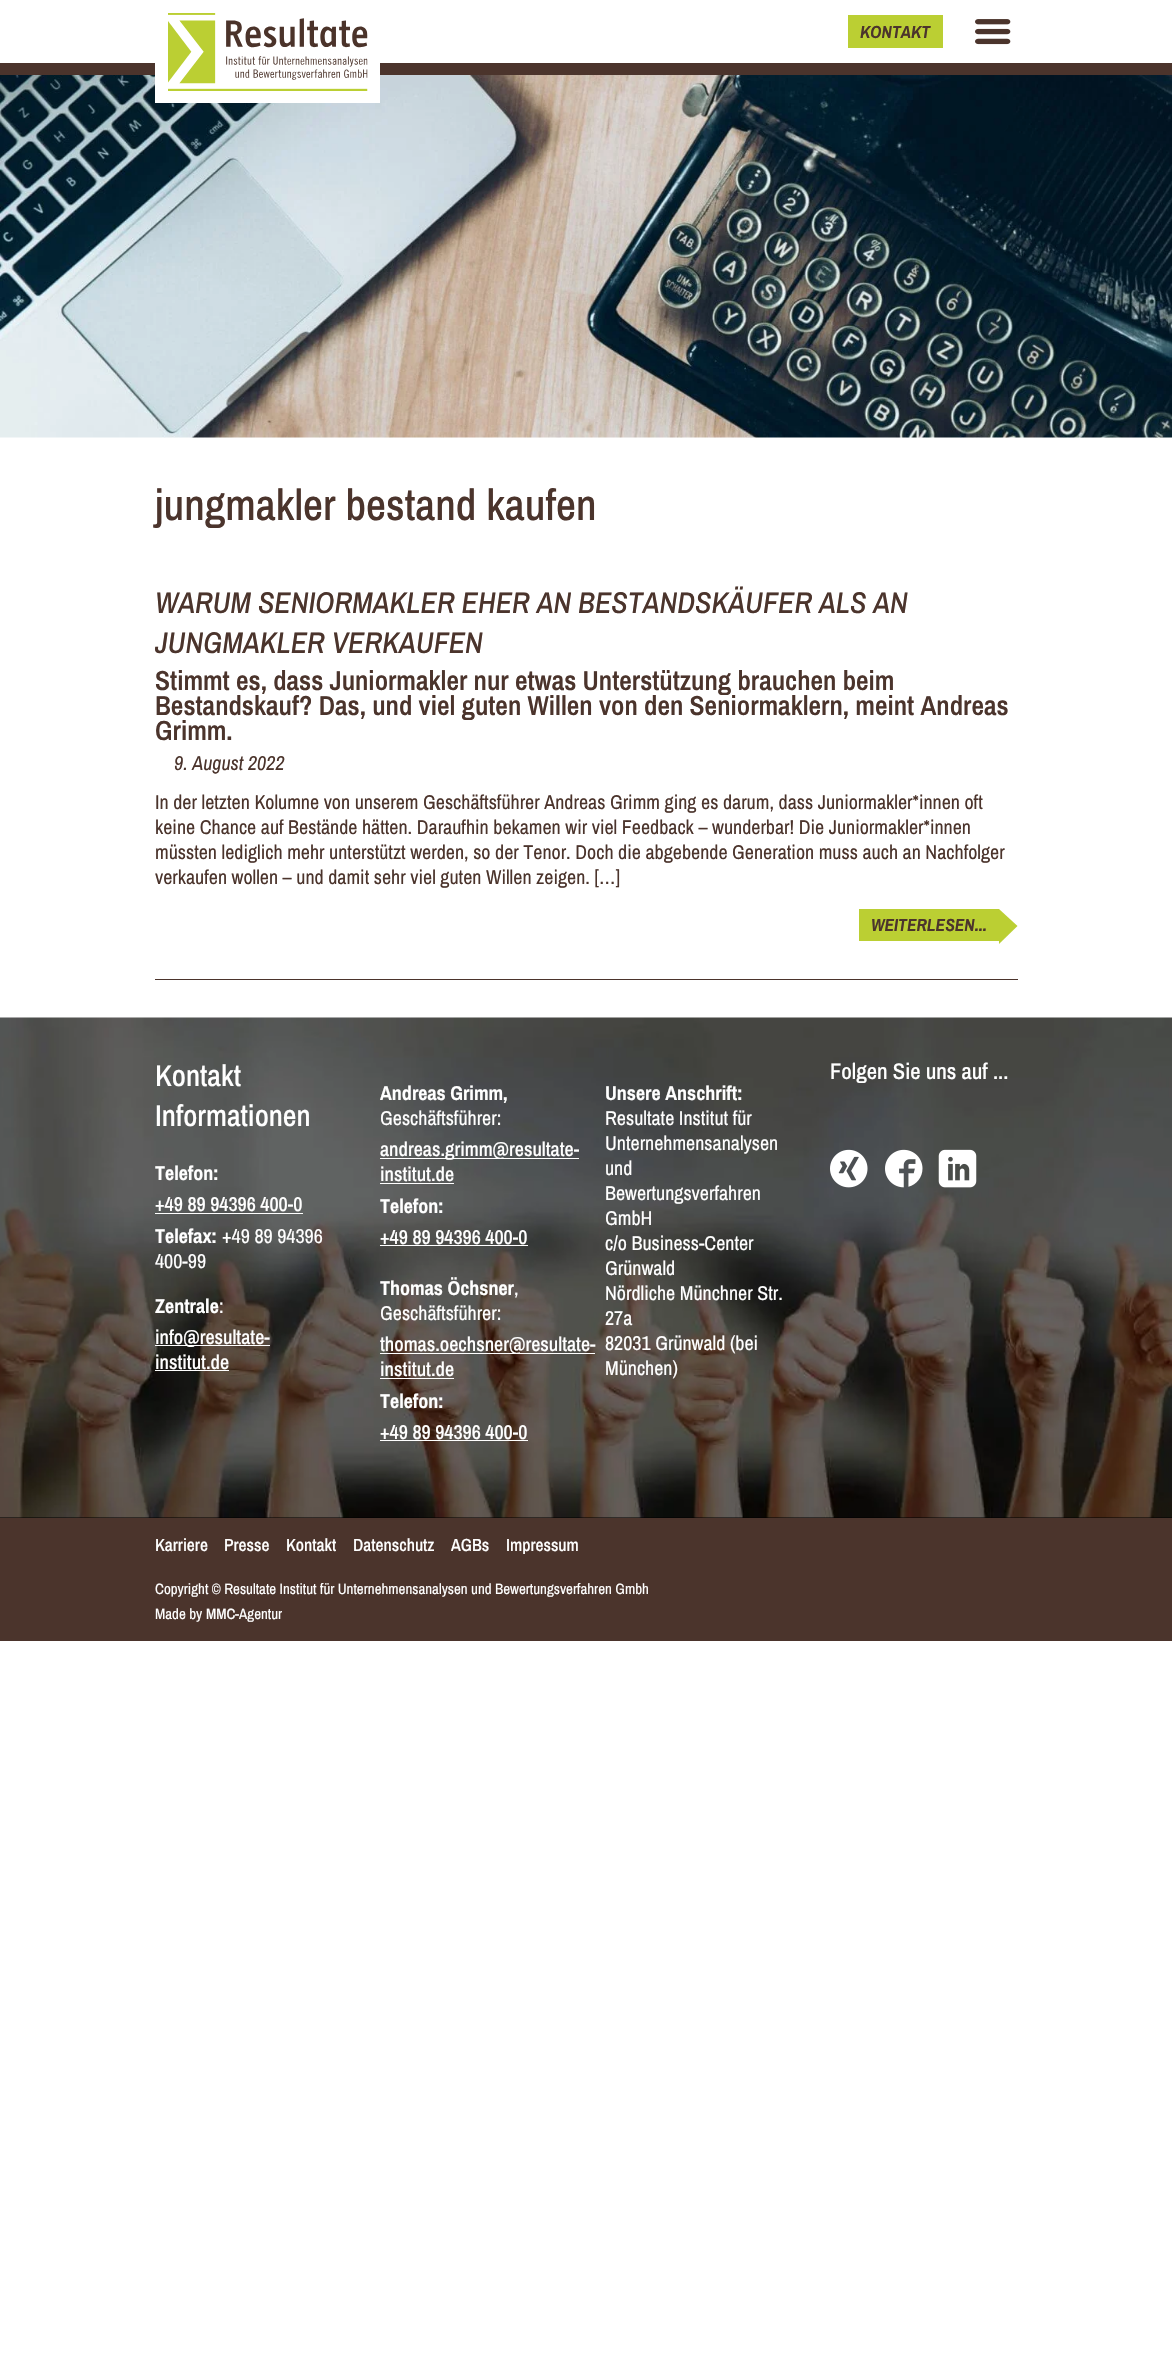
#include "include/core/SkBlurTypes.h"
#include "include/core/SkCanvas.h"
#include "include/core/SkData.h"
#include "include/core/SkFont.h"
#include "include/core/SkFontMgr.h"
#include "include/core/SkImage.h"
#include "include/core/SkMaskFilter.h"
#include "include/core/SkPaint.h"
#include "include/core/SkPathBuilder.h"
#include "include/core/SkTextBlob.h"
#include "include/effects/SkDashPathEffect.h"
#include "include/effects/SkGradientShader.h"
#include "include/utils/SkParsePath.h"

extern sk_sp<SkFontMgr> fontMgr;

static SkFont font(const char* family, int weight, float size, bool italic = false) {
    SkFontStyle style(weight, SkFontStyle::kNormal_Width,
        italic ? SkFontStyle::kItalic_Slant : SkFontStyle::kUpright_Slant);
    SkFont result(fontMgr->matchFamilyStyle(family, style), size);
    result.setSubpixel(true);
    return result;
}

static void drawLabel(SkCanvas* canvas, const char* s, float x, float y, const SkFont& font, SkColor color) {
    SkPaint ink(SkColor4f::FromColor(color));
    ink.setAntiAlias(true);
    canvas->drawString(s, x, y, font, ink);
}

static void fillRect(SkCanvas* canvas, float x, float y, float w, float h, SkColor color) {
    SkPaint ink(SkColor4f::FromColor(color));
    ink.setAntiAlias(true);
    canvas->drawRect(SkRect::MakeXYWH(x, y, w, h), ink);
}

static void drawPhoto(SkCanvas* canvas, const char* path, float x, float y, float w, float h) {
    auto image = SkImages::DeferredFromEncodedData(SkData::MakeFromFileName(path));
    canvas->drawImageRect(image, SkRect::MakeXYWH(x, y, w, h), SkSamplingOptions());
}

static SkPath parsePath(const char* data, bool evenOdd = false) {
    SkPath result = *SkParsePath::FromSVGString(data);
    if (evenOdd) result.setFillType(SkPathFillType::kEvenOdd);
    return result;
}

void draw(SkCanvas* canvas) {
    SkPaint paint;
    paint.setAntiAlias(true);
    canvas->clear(0xFFFFFFFF);
    fillRect(canvas, 0, 63, 1172, 12, 0xFF4B342C);
    drawPhoto(canvas, "assets/img3.png", 0, 75, 1172, 363);
    fillRect(canvas, 155, 63, 225, 40, 0xFFFFFFFF);
    drawPhoto(canvas, "assets/img1.png", 168, 13, 200, 78);
    fillRect(canvas, 848, 15, 95, 33, 0xFFBBCF33);
    SkFont font1 = font("Archivo Narrow", 700, 17.5f, true);
    drawLabel(canvas, "KONTAKT", 860, 38, font1, 0xFF4B342C);
    drawPhoto(canvas, "assets/img2.png", 975, 19, 36, 26);
    SkFont font2 = font("Archivo Narrow", 500, 43.75f);
    drawLabel(canvas, "jungmakler bestand kaufen", 155, 520, font2, 0xFF4B342C);
    fillRect(canvas, 155, 979, 863, 1, 0xFF4B342C);
    SkFont font3 = font("Archivo Narrow", 500, 30, true);
    drawLabel(canvas, "WARUM SENIORMAKLER EHER AN BESTANDSKÄUFER ALS AN", 155, 613, font3, 0xFF4B342C);
    drawLabel(canvas, "JUNGMAKLER VERKAUFEN", 155, 653, font3, 0xFF4B342C);
    SkFont font4 = font("Archivo Narrow", 600, 27.5f);
    drawLabel(canvas, "Stimmt es, dass Juniormakler nur etwas Unterstützung brauchen beim", 155, 690, font4, 0xFF4B342C);
    drawLabel(canvas, "Bestandskauf? Das, und viel guten Willen von den Seniormaklern, meint Andreas", 155, 715, font4, 0xFF4B342C);
    drawLabel(canvas, "Grimm.", 155, 740, font4, 0xFF4B342C);
    SkFont font5 = font("Archivo Narrow", 400, 20, true);
    drawLabel(canvas, "9. August 2022", 174, 770, font5, 0xFF4B342C);
    SkFont font6 = font("Archivo Narrow", 400, 20);
    drawLabel(canvas, "In der letzten Kolumne von unserem Geschäftsführer Andreas Grimm ging es darum, dass Juniormakler*innen oft", 155, 809, font6, 0xFF4B342C);
    drawLabel(canvas, "keine Chance auf Bestände hätten. Daraufhin bekamen wir viel Feedback – wunderbar! Die Juniormakler*innen", 155, 834, font6, 0xFF4B342C);
    drawLabel(canvas, "müssten lediglich mehr unterstützt werden, so der Tenor. Doch die abgebende Generation muss auch an Nachfolger", 155, 859, font6, 0xFF4B342C);
    drawLabel(canvas, "verkaufen wollen – und damit sehr viel guten Willen zeigen. […]", 155, 884, font6, 0xFF4B342C);
    fillRect(canvas, 859, 909, 140, 32, 0xFFBBCF33);
    drawLabel(canvas, "WEITERLESEN...", 871, 931, font1, 0xFF4B342C);
    paint.setColor(0xFFBBCF33);
    canvas->drawPath(parsePath("M999 944V909L1017.5 926Z"), paint);
    fillRect(canvas, 0, 1517, 1172, 1, 0xFF000000);
    drawPhoto(canvas, "assets/img4.png", 0, 1017, 1172, 501);
    SkFont font7 = font("Archivo Narrow", 500, 30);
    drawLabel(canvas, "Kontakt", 155, 1086, font7, 0xFFFFFFFF);
    drawLabel(canvas, "Informationen", 155, 1126, font7, 0xFFFFFFFF);
    SkFont font8 = font("Archivo Narrow", 700, 20);
    drawLabel(canvas, "Telefon:", 155, 1180, font8, 0xFFFFFFFF);
    SkFont font9 = font("Archivo Narrow", 500, 20);
    drawLabel(canvas, "+49 89 94396 400-0", 155, 1211, font9, 0xFFFFFFFF);
    fillRect(canvas, 155, 1213, 148, 1, 0xFFFFFFFF);
    drawLabel(canvas, "Telefax:", 155, 1243, font8, 0xFFFFFFFF);
    drawLabel(canvas, "+49 89 94396", 222, 1243, font6, 0xFFFFFFFF);
    drawLabel(canvas, "400-99", 155, 1268, font6, 0xFFFFFFFF);
    drawLabel(canvas, "Zentrale", 155, 1313, font8, 0xFFFFFFFF);
    drawLabel(canvas, ":", 219, 1313, font6, 0xFFFFFFFF);
    fillRect(canvas, 155, 1345, 115, 1, 0xFFFFFFFF);
    drawLabel(canvas, "info@resultate-", 155, 1344, font9, 0xFFFFFFFF);
    drawLabel(canvas, "institut.de", 155, 1369, font9, 0xFFFFFFFF);
    fillRect(canvas, 155, 1370, 74, 1, 0xFFFFFFFF);
    drawLabel(canvas, "Andreas Grimm,", 380, 1100, font8, 0xFFFFFFFF);
    drawLabel(canvas, "Geschäftsführer:", 380, 1125, font6, 0xFFFFFFFF);
    fillRect(canvas, 380, 1158, 199, 1, 0xFFFFFFFF);
    drawLabel(canvas, "andreas.grimm@resultate-", 380, 1156, font9, 0xFFFFFFFF);
    drawLabel(canvas, "institut.de", 380, 1181, font9, 0xFFFFFFFF);
    fillRect(canvas, 380, 1183, 74, 1, 0xFFFFFFFF);
    drawLabel(canvas, "Telefon:", 380, 1213, font8, 0xFFFFFFFF);
    drawLabel(canvas, "+49 89 94396 400-0", 380, 1244, font9, 0xFFFFFFFF);
    fillRect(canvas, 380, 1245, 148, 1, 0xFFFFFFFF);
    drawLabel(canvas, "Thomas Öchsner", 380, 1295, font8, 0xFFFFFFFF);
    drawLabel(canvas, ",", 514, 1295, font6, 0xFFFFFFFF);
    drawLabel(canvas, "Geschäftsführer:", 380, 1320, font6, 0xFFFFFFFF);
    fillRect(canvas, 380, 1353, 215, 1, 0xFFFFFFFF);
    drawLabel(canvas, "thomas.oechsner@resultate-", 380, 1351, font9, 0xFFFFFFFF);
    drawLabel(canvas, "institut.de", 380, 1376, font9, 0xFFFFFFFF);
    fillRect(canvas, 380, 1378, 74, 1, 0xFFFFFFFF);
    drawLabel(canvas, "Telefon:", 380, 1408, font8, 0xFFFFFFFF);
    drawLabel(canvas, "+49 89 94396 400-0", 380, 1439, font9, 0xFFFFFFFF);
    fillRect(canvas, 380, 1440, 148, 1, 0xFFFFFFFF);
    drawLabel(canvas, "Unsere Anschrift:", 605, 1100, font8, 0xFFFFFFFF);
    drawLabel(canvas, "Resultate Institut für", 605, 1125, font6, 0xFFFFFFFF);
    drawLabel(canvas, "Unternehmensanalysen", 605, 1150, font6, 0xFFFFFFFF);
    drawLabel(canvas, "und", 605, 1175, font6, 0xFFFFFFFF);
    drawLabel(canvas, "Bewertungsverfahren", 605, 1200, font6, 0xFFFFFFFF);
    drawLabel(canvas, "GmbH", 605, 1225, font6, 0xFFFFFFFF);
    drawLabel(canvas, "c/o Business-Center", 605, 1250, font6, 0xFFFFFFFF);
    drawLabel(canvas, "Grünwald", 605, 1275, font6, 0xFFFFFFFF);
    drawLabel(canvas, "Nördliche Münchner Str.", 605, 1300, font6, 0xFFFFFFFF);
    drawLabel(canvas, "27a", 605, 1325, font6, 0xFFFFFFFF);
    drawLabel(canvas, "82031 Grünwald (bei", 605, 1350, font6, 0xFFFFFFFF);
    drawLabel(canvas, "München)", 605, 1375, font6, 0xFFFFFFFF);
    SkFont font10 = font("Archivo Narrow", 500, 22.5f);
    drawLabel(canvas, "Folgen Sie uns auf ...", 830, 1079, font10, 0xFFFFFFFF);
    drawPhoto(canvas, "assets/img5.png", 830, 1149, 38, 39);
    drawPhoto(canvas, "assets/img6.png", 885, 1149, 38, 39);
    drawPhoto(canvas, "assets/img7.png", 938, 1149, 39, 39);
    fillRect(canvas, 0, 1518, 1172, 123, 0xFF4B342C);
    SkFont font11 = font("Archivo Narrow", 500, 17.5f);
    drawLabel(canvas, "Karriere", 155, 1551, font11, 0xFFFFFFFF);
    drawLabel(canvas, "Presse", 224, 1551, font11, 0xFFFFFFFF);
    drawLabel(canvas, "Kontakt", 286, 1551, font11, 0xFFFFFFFF);
    drawLabel(canvas, "Datenschutz", 353, 1551, font11, 0xFFFFFFFF);
    drawLabel(canvas, "AGBs", 451, 1551, font11, 0xFFFFFFFF);
    drawLabel(canvas, "Impressum", 506, 1551, font11, 0xFFFFFFFF);
    SkFont font12 = font("Archivo Narrow", 400, 15);
    drawLabel(canvas, "Copyright © Resultate Institut für Unternehmensanalysen und Bewertungsverfahren Gmbh", 155, 1594, font12, 0xFFFFFFFF);
    drawLabel(canvas, "Made by", 155, 1619, font12, 0xFFFFFFFF);
    SkFont font13 = font("Archivo Narrow", 500, 15);
    drawLabel(canvas, "MMC", 206, 1619, font13, 0xFFFFFFFF);
    drawLabel(canvas, "-Agentur", 235, 1619, font12, 0xFFFFFFFF);
}
